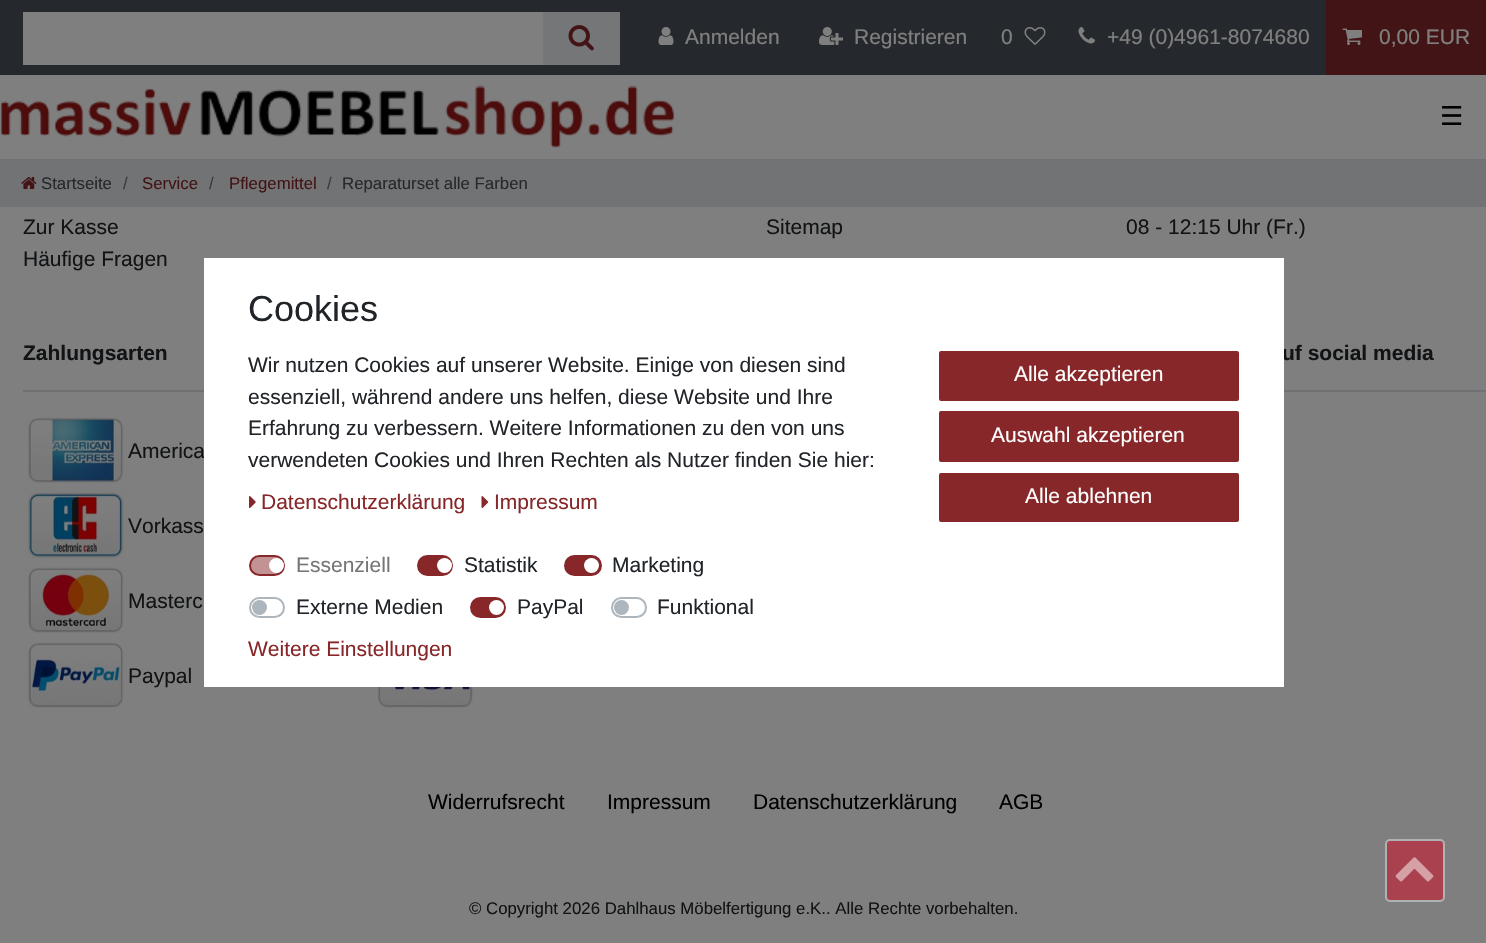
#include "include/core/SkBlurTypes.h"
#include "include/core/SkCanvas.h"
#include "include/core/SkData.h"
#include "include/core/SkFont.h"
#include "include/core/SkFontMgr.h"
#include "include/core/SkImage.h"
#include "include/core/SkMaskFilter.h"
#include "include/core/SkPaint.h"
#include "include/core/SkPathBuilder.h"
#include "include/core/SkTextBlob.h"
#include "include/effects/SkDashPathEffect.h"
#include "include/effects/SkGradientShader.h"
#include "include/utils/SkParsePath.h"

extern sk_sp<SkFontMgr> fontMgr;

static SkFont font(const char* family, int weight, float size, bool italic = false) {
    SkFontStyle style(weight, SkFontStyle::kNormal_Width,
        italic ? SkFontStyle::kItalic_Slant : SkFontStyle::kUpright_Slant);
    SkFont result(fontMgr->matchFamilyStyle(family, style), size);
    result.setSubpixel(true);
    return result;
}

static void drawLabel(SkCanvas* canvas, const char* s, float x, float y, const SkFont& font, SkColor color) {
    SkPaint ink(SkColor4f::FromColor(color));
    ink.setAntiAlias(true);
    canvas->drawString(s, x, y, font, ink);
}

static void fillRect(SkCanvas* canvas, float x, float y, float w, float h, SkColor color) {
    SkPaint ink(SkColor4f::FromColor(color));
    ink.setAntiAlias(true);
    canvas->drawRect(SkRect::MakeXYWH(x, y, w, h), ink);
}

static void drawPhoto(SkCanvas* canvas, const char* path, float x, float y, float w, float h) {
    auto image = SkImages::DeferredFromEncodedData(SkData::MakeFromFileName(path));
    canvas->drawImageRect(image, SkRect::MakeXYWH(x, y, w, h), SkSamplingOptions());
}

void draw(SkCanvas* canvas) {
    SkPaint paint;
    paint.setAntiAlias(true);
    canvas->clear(0xFFFFFFFF);
    fillRect(canvas, 0, 0, 1326, 75, 0xFF495057);
    fillRect(canvas, 23, 12, 520, 53, 0xFFFFFFFF);
    fillRect(canvas, 543, 12, 77, 53, 0xFFE9ECEF);
    drawPhoto(canvas, "assets/img1.png", 568, 25, 26, 26);
    drawPhoto(canvas, "assets/img2.png", 658, 27, 16, 18);
    SkFont font1 = font("Liberation Sans", 400, 21);
    drawLabel(canvas, "Anmelden", 685, 44, font1, 0xFFFFFFFF);
    drawPhoto(canvas, "assets/img3.png", 819, 27, 24, 18);
    drawLabel(canvas, "Registrieren", 854, 44, font1, 0xFFFFFFFF);
    drawLabel(canvas, "0", 1001, 44, font1, 0xFFFFFFFF);
    drawPhoto(canvas, "assets/img4.png", 1024, 27, 22, 18);
    drawPhoto(canvas, "assets/img5.png", 1078, 27, 17, 17);
    drawLabel(canvas, "+49 (0)4961-8074680", 1107, 44, font1, 0xFFFFFFFF);
    fillRect(canvas, 1326, 0, 160, 75, 0xFF872729);
    drawPhoto(canvas, "assets/img6.png", 1342, 28, 20, 17);
    drawLabel(canvas, "0,00 EUR", 1379, 44, font1, 0xFFFFFFFF);
    fillRect(canvas, 0, 159, 1486, 2, 0xFFDEE2E6);
    drawPhoto(canvas, "assets/img7.png", 0, 85, 675, 63);
    SkFont font2 = font("DejaVu Sans", 400, 26);
    drawLabel(canvas, "☰", 1440, 125, font2, 0xFF000000);
    fillRect(canvas, 0, 161, 1486, 46, 0xFFE3E7EB);
    drawPhoto(canvas, "assets/img8.png", 21, 177, 16, 12);
    SkFont font3 = font("Liberation Sans", 400, 16.8f);
    drawLabel(canvas, "Startseite", 41, 189, font3, 0xFF495057);
    drawLabel(canvas, "/", 123, 189, font3, 0xFF6C757D);
    drawLabel(canvas, "Service", 142, 189, font3, 0xFF872729);
    drawLabel(canvas, "/", 209, 189, font3, 0xFF6C757D);
    drawLabel(canvas, "Pflegemittel", 229, 189, font3, 0xFF872729);
    drawLabel(canvas, "/", 327, 189, font3, 0xFF6C757D);
    drawLabel(canvas, "Reparaturset alle Farben", 342, 189, font3, 0xFF495057);
    drawLabel(canvas, "Zur Kasse", 23, 234, font1, 0xFF212529);
    drawLabel(canvas, "Häufige Fragen", 23, 266, font1, 0xFF212529);
    drawLabel(canvas, "Sitemap", 766, 234, font1, 0xFF212529);
    drawLabel(canvas, "08 - 12:15 Uhr (Fr.)", 1126, 234, font1, 0xFF212529);
    SkFont font4 = font("Liberation Sans", 700, 21);
    drawLabel(canvas, "Zahlungsarten", 23, 360, font4, 0xFF212529);
    fillRect(canvas, 23, 390, 181, 2, 0xFFDEE2E6);
    drawPhoto(canvas, "assets/img9.png", 28, 414, 96, 70);
    drawLabel(canvas, "America", 128, 458, font1, 0xFF212529);
    drawPhoto(canvas, "assets/img10.png", 22, 487, 106, 72);
    drawLabel(canvas, "Vorkass", 128, 533, font1, 0xFF212529);
    drawPhoto(canvas, "assets/img11.png", 28, 567, 96, 66);
    drawLabel(canvas, "Masterc", 128, 608, font1, 0xFF212529);
    drawPhoto(canvas, "assets/img12.png", 23, 642, 104, 66);
    drawLabel(canvas, "Paypal", 128, 683, font1, 0xFF212529);
    drawPhoto(canvas, "assets/img13.png", 372, 687, 105, 21);
    drawLabel(canvas, "uf social media", 1282, 360, font4, 0xFF212529);
    fillRect(canvas, 1284, 390, 202, 2, 0xFFDEE2E6);
    drawLabel(canvas, "Widerrufsrecht", 428, 809, font1, 0xFF000000);
    drawLabel(canvas, "Impressum", 607, 809, font1, 0xFF000000);
    drawLabel(canvas, "Datenschutzerklärung", 753, 809, font1, 0xFF000000);
    drawLabel(canvas, "AGB", 999, 809, font1, 0xFF000000);
    drawLabel(canvas, "© Copyright 2026 Dahlhaus Möbelfertigung e.K.. Alle Rechte vorbehalten.", 469, 914, font3, 0xFF212529);
    paint.setStroke(true);
    paint.setStrokeWidth(2430);
    paint.setColor(0x80000000);
    canvas->drawRect(SkRect::MakeXYWH(-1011, -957, 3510, 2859), paint);
    paint.setStroke(false);
    paint.setColor(0xFFAA414E);
    canvas->drawRoundRect(SkRect::MakeXYWH(1386, 840, 58, 61), 4, 4, paint);
    paint.setStroke(true);
    paint.setStrokeWidth(2);
    paint.setColor(0xFFAFB1B3);
    canvas->drawRoundRect(SkRect::MakeXYWH(1386, 840, 58, 61), 4, 4, paint);
    drawPhoto(canvas, "assets/img14.png", 1395, 857, 39, 25);
    fillRect(canvas, 204, 348, 1080, 110, 0xFFFFFFFF);
    SkFont font5 = font("Liberation Sans", 400, 36);
    drawLabel(canvas, "Cookies", 248, 321, font5, 0xFF212529);
    drawLabel(canvas, "Wir nutzen Cookies auf unserer Website. Einige von diesen sind", 248, 372, font1, 0xFF212529);
    drawLabel(canvas, "essenziell, während andere uns helfen, diese Website und Ihre", 248, 404, font1, 0xFF212529);
    drawLabel(canvas, "Erfahrung zu verbessern. Weitere Informationen zu den von uns", 248, 435, font1, 0xFF212529);
    drawLabel(canvas, "verwendeten Cookies und Ihren Rechten als Nutzer finden Sie hier:", 248, 467, font1, 0xFF212529);
    drawPhoto(canvas, "assets/img15.png", 249, 496, 7, 12);
    drawLabel(canvas, "Datenschutzerklärung", 261, 509, font1, 0xFF872729);
    drawPhoto(canvas, "assets/img16.png", 481, 496, 8, 12);
    drawLabel(canvas, "Impressum", 494, 509, font1, 0xFF872729);
    paint.setStroke(false);
    paint.setColor(0xFFC39394);
    canvas->drawRoundRect(SkRect::MakeXYWH(250, 556, 34, 19), 9.5f, 9.5f, paint);
    paint.setStroke(true);
    paint.setColor(0xFF872729);
    canvas->drawRoundRect(SkRect::MakeXYWH(250, 556, 34, 19), 9.5f, 9.5f, paint);
    drawLabel(canvas, "Essenziell", 296, 572, font1, 0xFF767676);
    paint.setStroke(false);
    paint.setColor(0xFFFFFFFF);
    canvas->drawCircle(276.5f, 565.5f, 7.5f, paint);
    paint.setColor(0xFF872729);
    canvas->drawRoundRect(SkRect::MakeXYWH(418, 556, 34, 19), 9.5f, 9.5f, paint);
    paint.setStroke(true);
    canvas->drawRoundRect(SkRect::MakeXYWH(418, 556, 34, 19), 9.5f, 9.5f, paint);
    drawLabel(canvas, "Statistik", 464, 572, font1, 0xFF212529);
    paint.setStroke(false);
    paint.setColor(0xFFFFFFFF);
    canvas->drawCircle(444.5f, 565.5f, 7.5f, paint);
    paint.setColor(0xFF872729);
    canvas->drawRoundRect(SkRect::MakeXYWH(565, 556, 36, 19), 9.5f, 9.5f, paint);
    paint.setStroke(true);
    canvas->drawRoundRect(SkRect::MakeXYWH(565, 556, 36, 19), 9.5f, 9.5f, paint);
    drawLabel(canvas, "Marketing", 612, 572, font1, 0xFF212529);
    paint.setStroke(false);
    paint.setColor(0xFFFFFFFF);
    canvas->drawCircle(591.5f, 565.5f, 7.5f, paint);
    paint.setStroke(true);
    paint.setColor(0xFFADB5BD);
    canvas->drawRoundRect(SkRect::MakeXYWH(250, 598, 34, 19), 9.5f, 9.5f, paint);
    drawLabel(canvas, "Externe Medien", 296, 614, font1, 0xFF212529);
    paint.setStroke(false);
    canvas->drawCircle(259.5f, 607.5f, 7.5f, paint);
    paint.setColor(0xFF872729);
    canvas->drawRoundRect(SkRect::MakeXYWH(471, 598, 34, 19), 9.5f, 9.5f, paint);
    paint.setStroke(true);
    canvas->drawRoundRect(SkRect::MakeXYWH(471, 598, 34, 19), 9.5f, 9.5f, paint);
    drawLabel(canvas, "PayPal", 517, 614, font1, 0xFF212529);
    paint.setStroke(false);
    paint.setColor(0xFFFFFFFF);
    canvas->drawCircle(496.5f, 607.5f, 7.5f, paint);
    paint.setStroke(true);
    paint.setColor(0xFFADB5BD);
    canvas->drawRoundRect(SkRect::MakeXYWH(612, 598, 34, 19), 9.5f, 9.5f, paint);
    drawLabel(canvas, "Funktional", 657, 614, font1, 0xFF212529);
    paint.setStroke(false);
    canvas->drawCircle(621.5f, 607.5f, 7.5f, paint);
    drawLabel(canvas, "Weitere Einstellungen", 248, 656, font1, 0xFF872729);
    paint.setColor(0xFF872729);
    canvas->drawRoundRect(SkRect::MakeXYWH(940, 352, 298, 48), 1, 1, paint);
    paint.setStroke(true);
    canvas->drawRoundRect(SkRect::MakeXYWH(940, 352, 298, 48), 1, 1, paint);
    drawLabel(canvas, "Alle akzeptieren", 1014, 381, font1, 0xFFFFFFFF);
    paint.setStroke(false);
    canvas->drawRoundRect(SkRect::MakeXYWH(940, 412, 298, 49), 1, 1, paint);
    paint.setStroke(true);
    canvas->drawRoundRect(SkRect::MakeXYWH(940, 412, 298, 49), 1, 1, paint);
    drawLabel(canvas, "Auswahl akzeptieren", 991, 442, font1, 0xFFFFFFFF);
    paint.setStroke(false);
    canvas->drawRoundRect(SkRect::MakeXYWH(940, 474, 298, 47), 1, 1, paint);
    paint.setStroke(true);
    canvas->drawRoundRect(SkRect::MakeXYWH(940, 474, 298, 47), 1, 1, paint);
    drawLabel(canvas, "Alle ablehnen", 1025, 503, font1, 0xFFFFFFFF);
}
